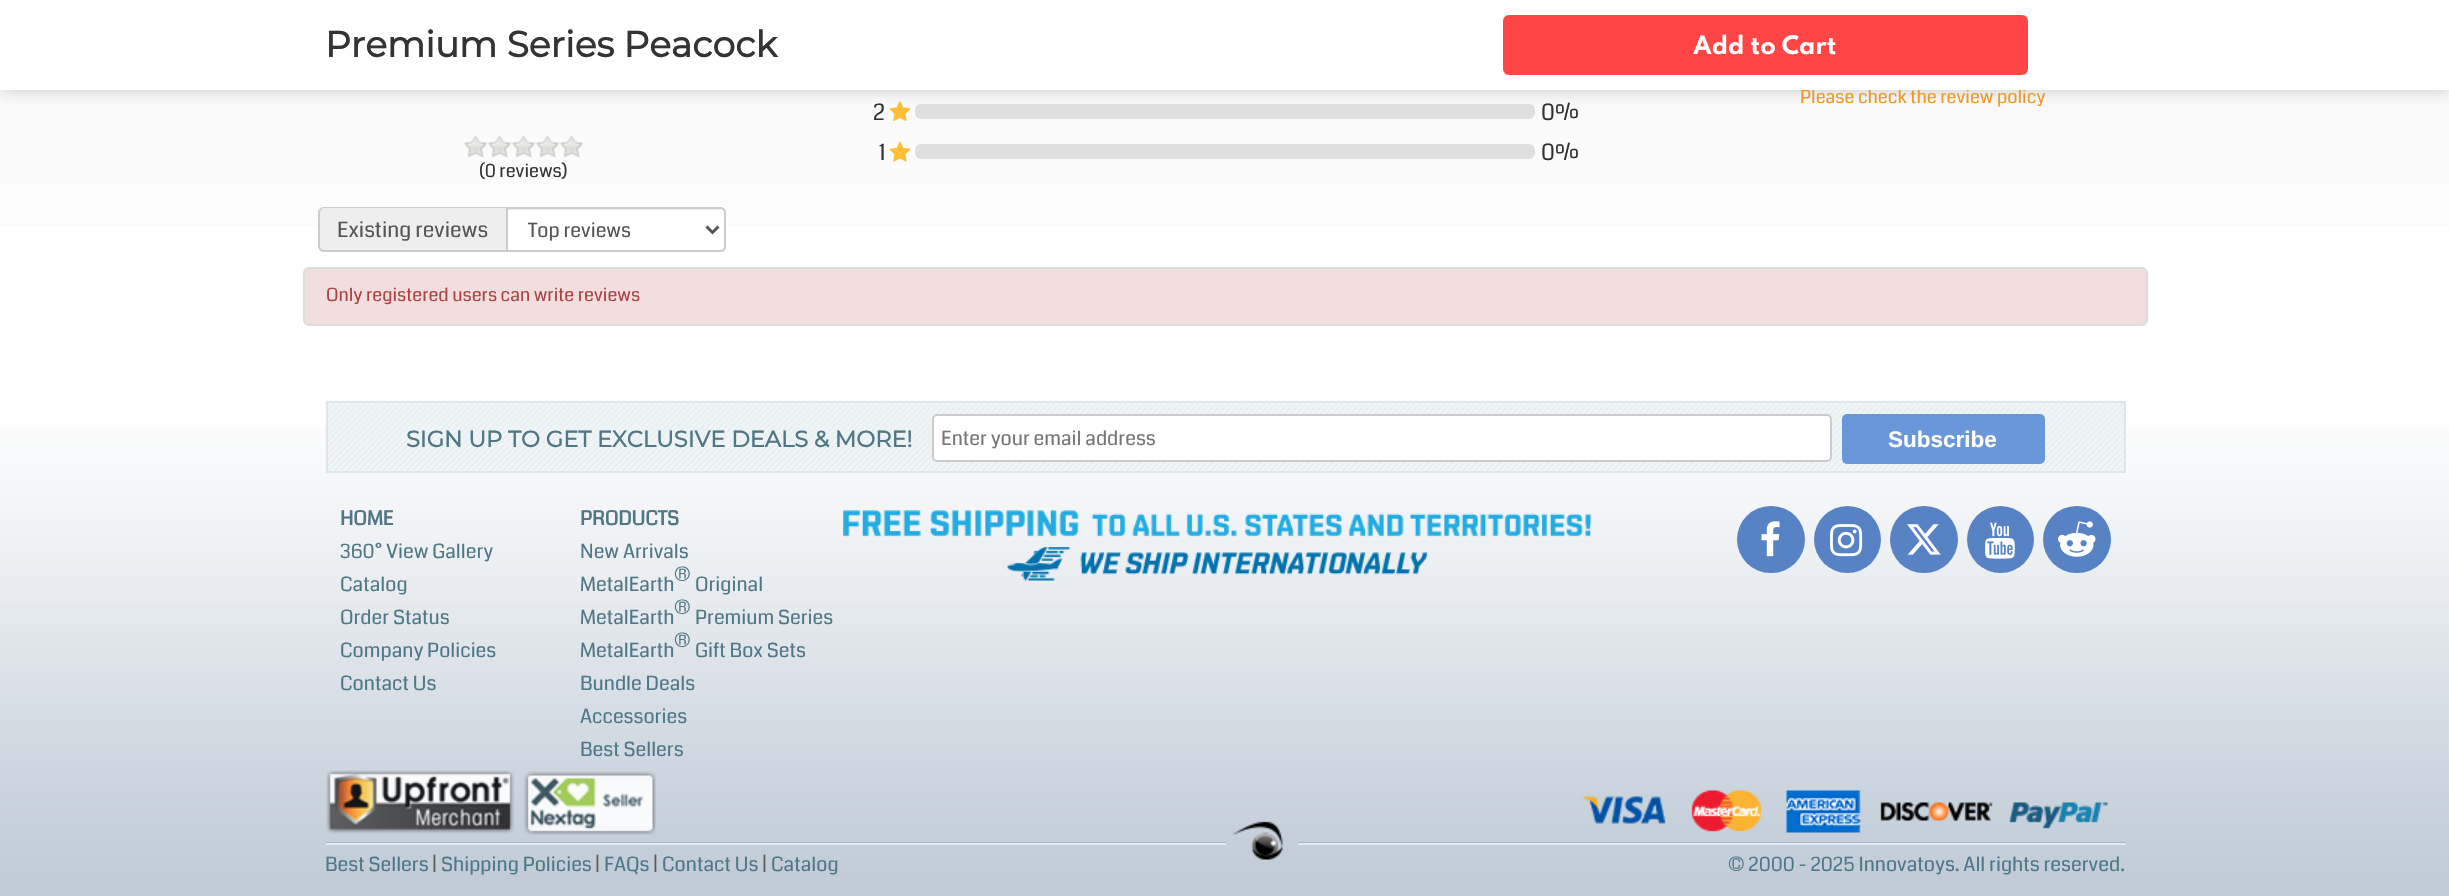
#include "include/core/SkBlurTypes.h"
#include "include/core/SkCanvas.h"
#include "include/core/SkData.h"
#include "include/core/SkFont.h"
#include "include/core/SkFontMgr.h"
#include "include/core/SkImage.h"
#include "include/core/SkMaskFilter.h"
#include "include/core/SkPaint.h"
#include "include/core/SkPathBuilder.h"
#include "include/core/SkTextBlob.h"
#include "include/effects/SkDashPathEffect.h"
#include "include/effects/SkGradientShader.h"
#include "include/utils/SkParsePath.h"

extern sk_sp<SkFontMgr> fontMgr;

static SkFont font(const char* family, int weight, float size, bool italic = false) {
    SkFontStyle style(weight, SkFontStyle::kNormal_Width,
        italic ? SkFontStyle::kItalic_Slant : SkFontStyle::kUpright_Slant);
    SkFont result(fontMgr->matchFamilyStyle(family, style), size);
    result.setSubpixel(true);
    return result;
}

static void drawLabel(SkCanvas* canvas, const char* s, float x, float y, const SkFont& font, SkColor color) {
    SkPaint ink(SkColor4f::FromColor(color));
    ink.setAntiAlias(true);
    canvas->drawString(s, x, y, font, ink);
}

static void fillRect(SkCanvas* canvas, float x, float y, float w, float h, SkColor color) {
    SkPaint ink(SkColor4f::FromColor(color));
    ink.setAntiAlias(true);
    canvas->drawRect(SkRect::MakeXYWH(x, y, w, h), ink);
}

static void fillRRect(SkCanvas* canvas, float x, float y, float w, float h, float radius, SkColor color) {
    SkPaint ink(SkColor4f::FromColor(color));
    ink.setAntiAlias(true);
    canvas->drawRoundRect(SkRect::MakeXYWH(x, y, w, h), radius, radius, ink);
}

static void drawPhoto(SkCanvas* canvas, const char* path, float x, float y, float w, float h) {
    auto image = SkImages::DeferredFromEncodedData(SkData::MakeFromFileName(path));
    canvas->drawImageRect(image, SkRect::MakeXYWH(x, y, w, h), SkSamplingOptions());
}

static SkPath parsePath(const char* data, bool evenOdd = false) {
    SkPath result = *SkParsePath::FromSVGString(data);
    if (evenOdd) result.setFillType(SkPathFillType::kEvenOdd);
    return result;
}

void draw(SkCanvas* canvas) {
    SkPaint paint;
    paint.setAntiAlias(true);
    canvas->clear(0xFFFFFFFF);
    {
        const SkColor colors[] = {0xFFF9F9F9, 0xFFFFFFFF};
        const float stops[] = {0.33f, 1};
        const SkPoint ends[] = {{1225, -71}, {1225, 341}};
        paint.setShader(SkGradientShader::MakeLinear(ends, colors, stops, 2, SkTileMode::kClamp));
        paint.setAlpha(255);
    }
    canvas->drawRect(SkRect::MakeXYWH(0, 90, 2449, 136), paint);
    drawPhoto(canvas, "assets/img1.png", 889, 101, 22, 20);
    fillRRect(canvas, 915, 104, 620, 15, 6, 0xFFDFDFDF);
    paint.setShader(nullptr);
    paint.setColor(0x33000000);
    paint.setMaskFilter(SkMaskFilter::MakeBlur(kNormal_SkBlurStyle, 7.5f));
    canvas->drawRect(SkRect::MakeXYWH(0, 0, 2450, 90), paint);
    paint.setMaskFilter(nullptr);
    SkFont font1 = font("Coda", 400, 18);
    drawLabel(canvas, "Please check the review policy", 1800, 103, font1, 0xFFEC9A26);
    fillRect(canvas, 0, 0, 2449, 90, 0xFFFFFFFF);
    SkFont font2 = font("Montserrat", 700, 36);
    drawLabel(canvas, "Premium Series Peacock", 325, 57, font2, 0xFF333333);
    fillRRect(canvas, 1503, 15, 525, 60, 6, 0xFFFF4545);
    SkFont font3 = font("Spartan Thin", 700, 22.5f);
    drawLabel(canvas, "Add to Cart", 1693, 54, font3, 0xFFFFFFFF);
    SkFont font4 = font("Coda", 400, 22.5f);
    drawLabel(canvas, "2", 873, 120, font4, 0xFF333333);
    drawLabel(canvas, "0%", 1541, 120, font4, 0xFF333333);
    drawLabel(canvas, "1", 879, 160, font4, 0xFF333333);
    drawPhoto(canvas, "assets/img2.png", 889, 141, 22, 21);
    fillRRect(canvas, 915, 144, 620, 15, 6, 0xFFDFDFDF);
    drawLabel(canvas, "0%", 1541, 160, font4, 0xFF333333);
    drawPhoto(canvas, "assets/img3.png", 463, 135, 121, 23);
    drawLabel(canvas, "(0 reviews)", 479, 177, font1, 0xFF333333);
    paint.setColor(0xFFEEEEEE);
    canvas->drawPath(parsePath("M324 207H506V252H324C320.5 252 318 249.5 318 246V213C318 209.5 320.5 207 324 207Z"), paint);
    paint.setColor(0xFFCCCCCC);
    canvas->drawPath(parsePath("M324 207H506V252H324C321 252 318 249 318 246V213C318 210 321 207 324 207ZM324 208H506V250H324C322 250 320 248 320 246V213C320 211 322 208 324 208Z", true), paint);
    SkFont font5 = font("Coda", 400, 21);
    drawLabel(canvas, "Existing reviews", 337, 237, font5, 0xFF555555);
    paint.setColor(0xFFFFFFFF);
    canvas->drawPath(parsePath("M506 207H721C724 207 726 209 726 212V247C726 250 724 252 721 252H506Z"), paint);
    paint.setColor(0xFFECECEC);
    canvas->drawPath(parsePath("M507 210H722C723 210 724 211 724 213V250C725 250 725 249 725 248V212C725 210 724 209 722 209H507Z"), paint);
    paint.setStroke(true);
    paint.setStrokeWidth(2);
    paint.setColor(0xFFCCCCCC);
    canvas->drawPath(parsePath("M507 208H721C723 208 725 210 725 212V247C725 249 723 251 721 251H507Z"), paint);
    paint.setStrokeWidth(3);
    paint.setColor(0xFF555555);
    canvas->drawPath(parsePath("M706.5 226.5L712.5 232.5L718.5 226.5"), paint);
    SkFont font6 = font("Coda", 400, 19.5f);
    drawLabel(canvas, "Top reviews", 528, 237, font6, 0xFF555555);
    paint.setStroke(false);
    paint.setColor(0xFFF2DEDE);
    canvas->drawRoundRect(SkRect::MakeXYWH(304, 268, 1843, 57), 5, 5, paint);
    paint.setStroke(true);
    paint.setStrokeWidth(2);
    paint.setColor(0xFFDDDDDD);
    canvas->drawRoundRect(SkRect::MakeXYWH(304, 268, 1843, 57), 5, 5, paint);
    drawLabel(canvas, "Only registered users can write reviews", 326, 301, font1, 0xFFA94442);
    drawPhoto(canvas, "assets/img4.png", 0, 427, 2449, 469);
    drawPhoto(canvas, "assets/img5.png", 325, 400, 1801, 73);
    paint.setColor(0xFFDFE6EA);
    canvas->drawRect(SkRect::MakeXYWH(327, 402, 1798, 70), paint);
    SkFont font7 = font("Montserrat", 700, 22.5f);
    drawLabel(canvas, "SIGN UP TO GET EXCLUSIVE DEALS & MORE!", 406, 447, font7, 0xFF4F7785);
    paint.setStroke(false);
    paint.setColor(0xFFFFFFFF);
    canvas->drawRoundRect(SkRect::MakeXYWH(933, 415, 898, 46), 4, 4, paint);
    paint.setStroke(true);
    paint.setColor(0xFFCCCCCC);
    canvas->drawRoundRect(SkRect::MakeXYWH(933, 415, 898, 46), 4, 4, paint);
    drawLabel(canvas, "Enter your email address", 941, 445, font6, 0xFF757575);
    fillRRect(canvas, 1842, 414, 203, 50, 5, 0xFF6A97D9);
    SkFont font8 = font("Liberation Sans", 700, 22.5f);
    drawLabel(canvas, "Subscribe", 1888, 447, font8, 0xFFFFFFFF);
    SkFont font9 = font("Coda", 700, 19.5f);
    drawLabel(canvas, "HOME", 340, 525, font9, 0xFF4F7785);
    drawLabel(canvas, "360° View Gallery", 340, 558, font6, 0xFF4F7785);
    drawLabel(canvas, "Catalog", 340, 591, font6, 0xFF4F7785);
    drawLabel(canvas, "Order Status", 340, 624, font6, 0xFF4F7785);
    drawLabel(canvas, "Company Policies", 340, 657, font6, 0xFF4F7785);
    drawLabel(canvas, "Contact Us", 340, 690, font6, 0xFF4F7785);
    drawLabel(canvas, "PRODUCTS", 580, 525, font9, 0xFF4F7785);
    drawLabel(canvas, "New Arrivals", 580, 558, font6, 0xFF4F7785);
    drawLabel(canvas, "®", 674, 581, font6, 0xFF4F7785);
    drawLabel(canvas, "MetalEarth", 580, 591, font6, 0xFF4F7785);
    drawLabel(canvas, "Original", 695, 591, font6, 0xFF4F7785);
    drawLabel(canvas, "®", 674, 614, font6, 0xFF4F7785);
    drawLabel(canvas, "MetalEarth", 580, 624, font6, 0xFF4F7785);
    drawLabel(canvas, "Premium Series", 695, 624, font6, 0xFF4F7785);
    drawLabel(canvas, "®", 674, 647, font6, 0xFF4F7785);
    drawLabel(canvas, "MetalEarth", 580, 657, font6, 0xFF4F7785);
    drawLabel(canvas, "Gift Box Sets", 695, 657, font6, 0xFF4F7785);
    drawLabel(canvas, "Bundle Deals", 580, 690, font6, 0xFF4F7785);
    drawLabel(canvas, "Accessories", 580, 723, font6, 0xFF4F7785);
    drawLabel(canvas, "Best Sellers", 580, 756, font6, 0xFF4F7785);
    drawPhoto(canvas, "assets/img6.png", 843, 510, 749, 71);
    fillRRect(canvas, 1737, 506, 68, 67, 33.5f, 0xFF5783C5);
    drawPhoto(canvas, "assets/img7.png", 1761, 521, 19, 36);
    paint.setStroke(false);
    paint.setColor(0xFF5783C5);
    canvas->drawCircle(1847.5f, 539.5f, 33.5f, paint);
    drawPhoto(canvas, "assets/img8.png", 1830, 524, 33, 33);
    fillRRect(canvas, 1890, 506, 68, 67, 33.5f, 0xFF5783C5);
    drawPhoto(canvas, "assets/img9.png", 1907, 524, 34, 31);
    canvas->drawCircle(2000.5f, 539.5f, 33.5f, paint);
    drawPhoto(canvas, "assets/img10.png", 1985, 522, 30, 37);
    fillRRect(canvas, 2043, 506, 68, 67, 33.5f, 0xFF5783C5);
    drawPhoto(canvas, "assets/img11.png", 2058, 521, 38, 36);
    drawPhoto(canvas, "assets/img12.png", 1233, 821, 50, 39);
    drawPhoto(canvas, "assets/img13.png", 326, 770, 330, 65);
    fillRect(canvas, 326, 842, 900, 1, 0xFF9FB8C8);
    fillRect(canvas, 326, 843, 900, 2, 0xFFE1ECEF);
    drawLabel(canvas, "Best Sellers", 325, 871, font6, 0xFF4F7785);
    drawLabel(canvas, "|", 432, 871, font6, 0xFF5C5B5B);
    drawLabel(canvas, "Shipping Policies", 441, 871, font6, 0xFF4F7785);
    drawLabel(canvas, "|", 595, 871, font6, 0xFF5C5B5B);
    drawLabel(canvas, "FAQs", 604, 871, font6, 0xFF4F7785);
    drawLabel(canvas, "|", 653, 871, font6, 0xFF5C5B5B);
    drawLabel(canvas, "Contact Us", 662, 871, font6, 0xFF4F7785);
    drawLabel(canvas, "|", 762, 871, font6, 0xFF5C5B5B);
    drawLabel(canvas, "Catalog", 771, 871, font6, 0xFF4F7785);
    drawPhoto(canvas, "assets/img14.png", 1582, 790, 526, 43);
    fillRect(canvas, 1298, 842, 828, 1, 0xFF9FB8C8);
    fillRect(canvas, 1298, 843, 828, 2, 0xFFE1ECEF);
    drawLabel(canvas, "© 2000 - 2025 Innovatoys. All rights reserved.", 1728, 871, font6, 0xFF4F7785);
}
